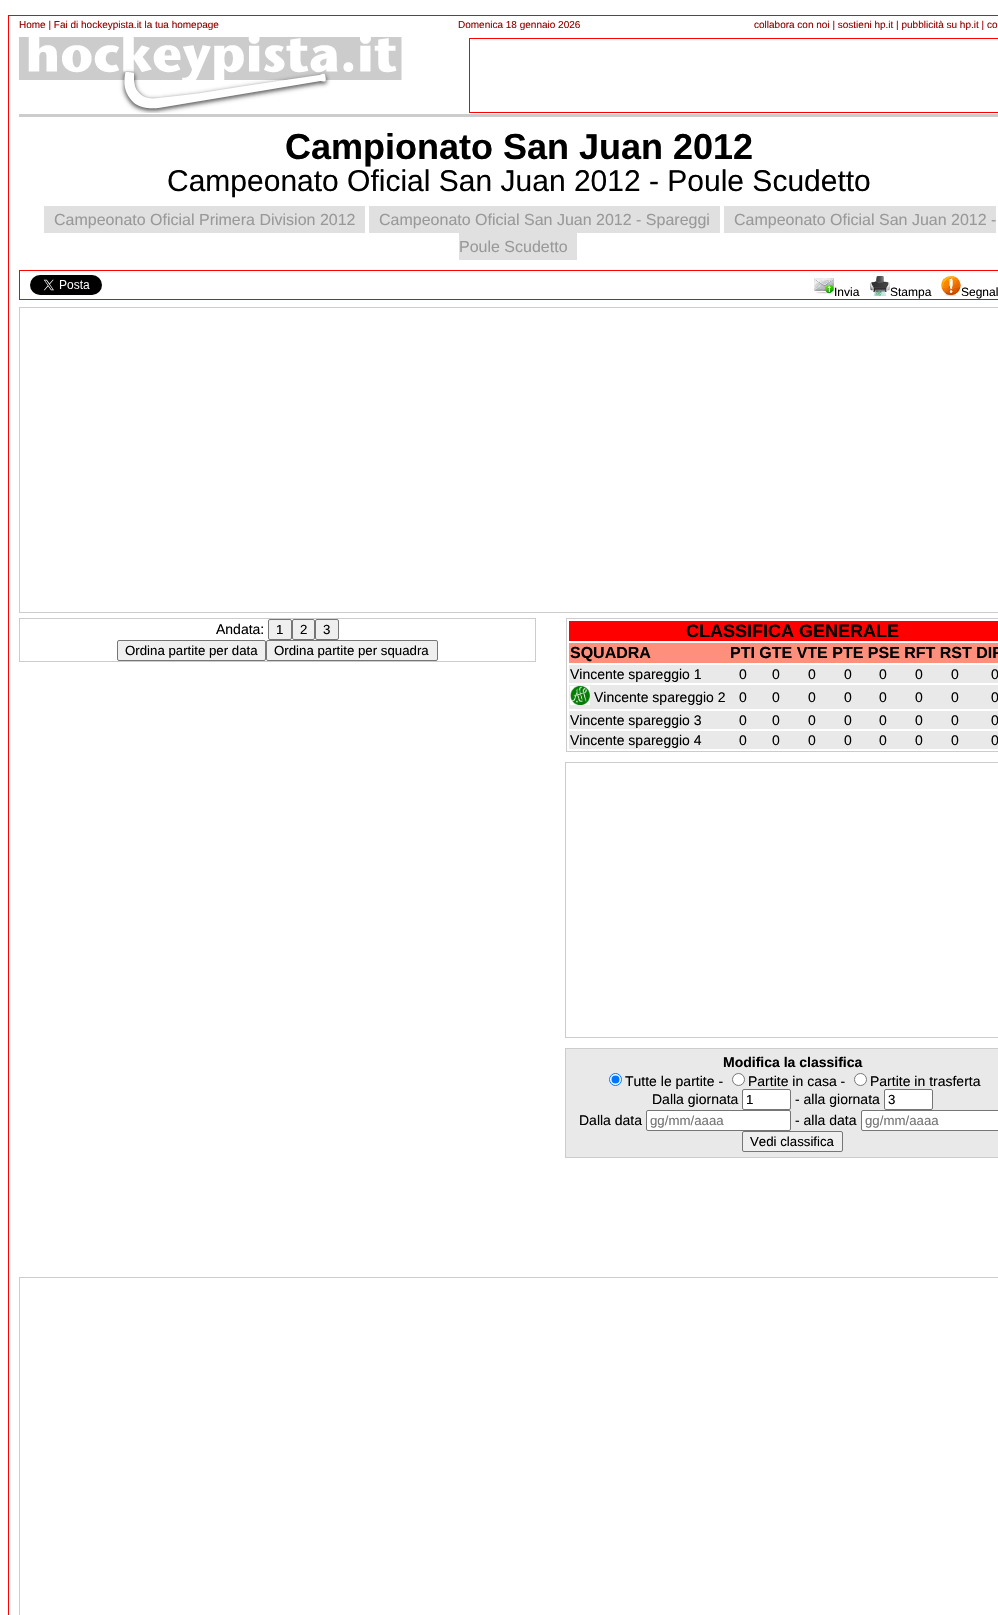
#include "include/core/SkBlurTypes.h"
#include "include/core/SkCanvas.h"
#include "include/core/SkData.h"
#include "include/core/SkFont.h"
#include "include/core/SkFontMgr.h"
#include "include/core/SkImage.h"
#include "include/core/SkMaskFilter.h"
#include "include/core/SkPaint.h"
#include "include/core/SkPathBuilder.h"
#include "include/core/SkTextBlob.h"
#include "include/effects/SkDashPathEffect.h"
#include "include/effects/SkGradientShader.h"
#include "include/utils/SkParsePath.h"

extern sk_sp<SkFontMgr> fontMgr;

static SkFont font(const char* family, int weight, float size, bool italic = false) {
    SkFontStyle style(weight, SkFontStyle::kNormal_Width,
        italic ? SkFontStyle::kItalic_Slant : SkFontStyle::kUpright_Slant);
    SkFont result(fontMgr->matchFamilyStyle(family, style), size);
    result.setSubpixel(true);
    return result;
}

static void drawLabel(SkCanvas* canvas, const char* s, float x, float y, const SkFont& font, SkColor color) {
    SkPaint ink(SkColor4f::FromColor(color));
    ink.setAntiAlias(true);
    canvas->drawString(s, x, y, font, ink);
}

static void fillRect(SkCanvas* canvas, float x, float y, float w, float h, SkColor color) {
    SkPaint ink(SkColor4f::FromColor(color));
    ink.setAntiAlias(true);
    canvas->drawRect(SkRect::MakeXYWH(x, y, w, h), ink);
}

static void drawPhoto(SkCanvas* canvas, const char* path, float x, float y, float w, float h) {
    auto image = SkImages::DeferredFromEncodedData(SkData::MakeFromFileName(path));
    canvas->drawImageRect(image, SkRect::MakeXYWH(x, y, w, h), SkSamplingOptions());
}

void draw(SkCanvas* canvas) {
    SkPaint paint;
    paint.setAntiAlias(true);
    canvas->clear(0xFFFFFFFF);
    paint.setStroke(true);
    paint.setStrokeWidth(1);
    paint.setColor(0xFFFF0000);
    canvas->drawRect(SkRect::MakeXYWH(8.5f, 15.5f, 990, 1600), paint);
    SkFont font1 = font("Liberation Sans", 400, 10);
    drawLabel(canvas, "Home | Fai di hockeypista.it la tua homepage", 19, 28, font1, 0xFF990000);
    drawLabel(canvas, "Domenica 18 gennaio 2026", 458, 28, font1, 0xFF990000);
    drawLabel(canvas, "collabora con noi | sostieni hp.it | pubblicità su hp.it | co", 754, 28, font1, 0xFF990000);
    drawPhoto(canvas, "assets/img1.png", 19, 37, 383, 76);
    canvas->drawRect(SkRect::MakeXYWH(469.5f, 38.5f, 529, 74), paint);
    fillRect(canvas, 19, 114, 979, 3, 0xFFCCCCCC);
    SkFont font2 = font("Liberation Sans", 700, 36);
    drawLabel(canvas, "Campionato San Juan 2012", 285, 159, font2, 0xFF000000);
    SkFont font3 = font("Liberation Sans", 400, 30);
    drawLabel(canvas, "Campeonato Oficial San Juan 2012 - Poule Scudetto", 167, 191, font3, 0xFF000000);
    fillRect(canvas, 44, 206, 321, 27, 0xFFE0E0E0);
    SkFont font4 = font("Liberation Sans", 400, 16);
    drawLabel(canvas, "Campeonato Oficial Primera Division 2012", 54, 225, font4, 0xFF999999);
    fillRect(canvas, 369, 206, 351, 27, 0xFFE0E0E0);
    drawLabel(canvas, "Campeonato Oficial San Juan 2012 - Spareggi", 379, 225, font4, 0xFF999999);
    fillRect(canvas, 724, 206, 272, 27, 0xFFE0E0E0);
    drawLabel(canvas, "Campeonato Oficial San Juan 2012 -", 734, 225, font4, 0xFF999999);
    fillRect(canvas, 459, 233, 118, 27, 0xFFE0E0E0);
    drawLabel(canvas, "Poule Scudetto", 459, 252, font4, 0xFF999999);
    canvas->drawRect(SkRect::MakeXYWH(19.5f, 270.5f, 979, 29), paint);
    drawPhoto(canvas, "assets/img2.png", 30, 275, 72, 20);
    drawPhoto(canvas, "assets/img3.png", 814, 278, 20, 16);
    SkFont font5 = font("Liberation Sans", 400, 12);
    drawLabel(canvas, "Invia", 834, 296, font5, 0xFF000000);
    drawPhoto(canvas, "assets/img4.png", 870, 276, 20, 20);
    drawLabel(canvas, "Stampa", 890, 296, font5, 0xFF000000);
    drawPhoto(canvas, "assets/img5.png", 941, 276, 20, 20);
    drawLabel(canvas, "Segnal", 961, 296, font5, 0xFF000000);
    paint.setColor(0xFFCCCCCC);
    canvas->drawRect(SkRect::MakeXYWH(19.5f, 307.5f, 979, 305), paint);
    canvas->drawRect(SkRect::MakeXYWH(19.5f, 618.5f, 516, 43), paint);
    SkFont font6 = font("Liberation Sans", 400, 14);
    drawLabel(canvas, "Andata:", 216, 634, font6, 0xFF000000);
    paint.setStroke(false);
    paint.setColor(0xFFEFEFEF);
    canvas->drawRoundRect(SkRect::MakeXYWH(268.5f, 619.5f, 23, 20), 1.5f, 1.5f, paint);
    paint.setStroke(true);
    paint.setColor(0xFF767676);
    canvas->drawRoundRect(SkRect::MakeXYWH(268.5f, 619.5f, 23, 20), 1.5f, 1.5f, paint);
    SkFont font7 = font("Liberation Sans", 400, 13.25f);
    drawLabel(canvas, "1", 276, 634, font7, 0xFF000000);
    paint.setStroke(false);
    paint.setColor(0xFFEFEFEF);
    canvas->drawRoundRect(SkRect::MakeXYWH(292.5f, 619.5f, 22, 20), 1.5f, 1.5f, paint);
    paint.setStroke(true);
    paint.setColor(0xFF767676);
    canvas->drawRoundRect(SkRect::MakeXYWH(292.5f, 619.5f, 22, 20), 1.5f, 1.5f, paint);
    drawLabel(canvas, "2", 300, 634, font7, 0xFF000000);
    paint.setStroke(false);
    paint.setColor(0xFFEFEFEF);
    canvas->drawRoundRect(SkRect::MakeXYWH(315.5f, 619.5f, 23, 20), 1.5f, 1.5f, paint);
    paint.setStroke(true);
    paint.setColor(0xFF767676);
    canvas->drawRoundRect(SkRect::MakeXYWH(315.5f, 619.5f, 23, 20), 1.5f, 1.5f, paint);
    drawLabel(canvas, "3", 323, 634, font7, 0xFF000000);
    paint.setStroke(false);
    paint.setColor(0xFFEFEFEF);
    canvas->drawRoundRect(SkRect::MakeXYWH(117.5f, 640.5f, 148, 20), 1.5f, 1.5f, paint);
    paint.setStroke(true);
    paint.setColor(0xFF767676);
    canvas->drawRoundRect(SkRect::MakeXYWH(117.5f, 640.5f, 148, 20), 1.5f, 1.5f, paint);
    drawLabel(canvas, "Ordina partite per data", 125, 655, font7, 0xFF000000);
    paint.setStroke(false);
    paint.setColor(0xFFEFEFEF);
    canvas->drawRoundRect(SkRect::MakeXYWH(266.5f, 640.5f, 171, 20), 1.5f, 1.5f, paint);
    paint.setStroke(true);
    paint.setColor(0xFF767676);
    canvas->drawRoundRect(SkRect::MakeXYWH(266.5f, 640.5f, 171, 20), 1.5f, 1.5f, paint);
    drawLabel(canvas, "Ordina partite per squadra", 274, 655, font7, 0xFF000000);
    paint.setColor(0xFFCCCCCC);
    canvas->drawRect(SkRect::MakeXYWH(566.5f, 618.5f, 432, 133), paint);
    fillRect(canvas, 569, 621, 429, 20, 0xFFFF0000);
    SkFont font8 = font("Liberation Sans", 700, 18);
    drawLabel(canvas, "CLASSIFICA GENERALE", 686, 637, font8, 0xFF000000);
    fillRect(canvas, 569, 643, 429, 20, 0xFFFF8F7D);
    SkFont font9 = font("Liberation Sans", 700, 16);
    drawLabel(canvas, "SQUADRA", 570, 658, font9, 0xFF000000);
    drawLabel(canvas, "PTI GTE VTE PTE PSE RFT RST DIF", 730, 658, font9, 0xFF000000);
    fillRect(canvas, 569, 665, 429, 18, 0xFFE9E9E9);
    drawLabel(canvas, "Vincente spareggio 1", 570, 679, font6, 0xFF000000);
    drawLabel(canvas, "0", 739, 679, font6, 0xFF000000);
    drawLabel(canvas, "0", 772, 679, font6, 0xFF000000);
    drawLabel(canvas, "0", 808, 679, font6, 0xFF000000);
    drawLabel(canvas, "0", 844, 679, font6, 0xFF000000);
    drawLabel(canvas, "0", 879, 679, font6, 0xFF000000);
    drawLabel(canvas, "0", 915, 679, font6, 0xFF000000);
    drawLabel(canvas, "0", 951, 679, font6, 0xFF000000);
    drawLabel(canvas, "0", 991, 679, font6, 0xFF000000);
    fillRect(canvas, 569, 685, 429, 24, 0xFFE9E9E9);
    drawPhoto(canvas, "assets/img6.png", 570, 686, 20, 19);
    drawLabel(canvas, "Vincente spareggio 2", 594, 702, font6, 0xFF000000);
    drawLabel(canvas, "0", 739, 702, font6, 0xFF000000);
    drawLabel(canvas, "0", 772, 702, font6, 0xFF000000);
    drawLabel(canvas, "0", 808, 702, font6, 0xFF000000);
    drawLabel(canvas, "0", 844, 702, font6, 0xFF000000);
    drawLabel(canvas, "0", 879, 702, font6, 0xFF000000);
    drawLabel(canvas, "0", 915, 702, font6, 0xFF000000);
    drawLabel(canvas, "0", 951, 702, font6, 0xFF000000);
    drawLabel(canvas, "0", 991, 702, font6, 0xFF000000);
    fillRect(canvas, 569, 711, 429, 18, 0xFFE9E9E9);
    drawLabel(canvas, "Vincente spareggio 3", 570, 725, font6, 0xFF000000);
    drawLabel(canvas, "0", 739, 725, font6, 0xFF000000);
    drawLabel(canvas, "0", 772, 725, font6, 0xFF000000);
    drawLabel(canvas, "0", 808, 725, font6, 0xFF000000);
    drawLabel(canvas, "0", 844, 725, font6, 0xFF000000);
    drawLabel(canvas, "0", 879, 725, font6, 0xFF000000);
    drawLabel(canvas, "0", 915, 725, font6, 0xFF000000);
    drawLabel(canvas, "0", 951, 725, font6, 0xFF000000);
    drawLabel(canvas, "0", 991, 725, font6, 0xFF000000);
    fillRect(canvas, 569, 731, 429, 18, 0xFFE9E9E9);
    drawLabel(canvas, "Vincente spareggio 4", 570, 745, font6, 0xFF000000);
    drawLabel(canvas, "0", 739, 745, font6, 0xFF000000);
    drawLabel(canvas, "0", 772, 745, font6, 0xFF000000);
    drawLabel(canvas, "0", 808, 745, font6, 0xFF000000);
    drawLabel(canvas, "0", 844, 745, font6, 0xFF000000);
    drawLabel(canvas, "0", 879, 745, font6, 0xFF000000);
    drawLabel(canvas, "0", 915, 745, font6, 0xFF000000);
    drawLabel(canvas, "0", 951, 745, font6, 0xFF000000);
    drawLabel(canvas, "0", 991, 745, font6, 0xFF000000);
    canvas->drawRect(SkRect::MakeXYWH(565.5f, 762.5f, 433, 275), paint);
    paint.setStroke(false);
    paint.setColor(0xFFE9E9E9);
    canvas->drawRect(SkRect::MakeXYWH(565.5f, 1048.5f, 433, 109), paint);
    paint.setStroke(true);
    paint.setColor(0xFFCCCCCC);
    canvas->drawRect(SkRect::MakeXYWH(565.5f, 1048.5f, 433, 109), paint);
    SkFont font10 = font("Liberation Sans", 700, 14);
    drawLabel(canvas, "Modifica la classifica", 723, 1067, font10, 0xFF000000);
    paint.setStroke(false);
    paint.setColor(0xFFFFFFFF);
    canvas->drawCircle(615.5f, 1079.5f, 6, paint);
    paint.setStroke(true);
    paint.setColor(0xFF0075FF);
    canvas->drawCircle(615.5f, 1079.5f, 6, paint);
    paint.setStroke(false);
    canvas->drawCircle(615.5f, 1079.5f, 4, paint);
    drawLabel(canvas, "Tutte le partite -", 625, 1086, font6, 0xFF000000);
    paint.setColor(0xFFFFFFFF);
    canvas->drawCircle(738.5f, 1079.5f, 6, paint);
    paint.setStroke(true);
    paint.setColor(0xFF767676);
    canvas->drawCircle(738.5f, 1079.5f, 6, paint);
    drawLabel(canvas, "Partite in casa -", 748, 1086, font6, 0xFF000000);
    paint.setStroke(false);
    paint.setColor(0xFFFFFFFF);
    canvas->drawCircle(860.5f, 1079.5f, 6, paint);
    paint.setStroke(true);
    paint.setColor(0xFF767676);
    canvas->drawCircle(860.5f, 1079.5f, 6, paint);
    drawLabel(canvas, "Partite in trasferta", 870, 1086, font6, 0xFF000000);
    drawLabel(canvas, "Dalla giornata", 652, 1104, font6, 0xFF000000);
    paint.setStroke(false);
    paint.setColor(0xFFFFFFFF);
    canvas->drawRoundRect(SkRect::MakeXYWH(742.5f, 1089.5f, 48, 20), 1.5f, 1.5f, paint);
    paint.setStroke(true);
    paint.setColor(0xFF767676);
    canvas->drawRoundRect(SkRect::MakeXYWH(742.5f, 1089.5f, 48, 20), 1.5f, 1.5f, paint);
    drawLabel(canvas, "1", 746, 1104, font7, 0xFF000000);
    drawLabel(canvas, "- alla giornata", 795, 1104, font6, 0xFF000000);
    paint.setStroke(false);
    paint.setColor(0xFFFFFFFF);
    canvas->drawRoundRect(SkRect::MakeXYWH(884.5f, 1089.5f, 48, 20), 1.5f, 1.5f, paint);
    paint.setStroke(true);
    paint.setColor(0xFF767676);
    canvas->drawRoundRect(SkRect::MakeXYWH(884.5f, 1089.5f, 48, 20), 1.5f, 1.5f, paint);
    drawLabel(canvas, "3", 888, 1104, font7, 0xFF000000);
    drawLabel(canvas, "Dalla data", 579, 1125, font6, 0xFF000000);
    paint.setStroke(false);
    paint.setColor(0xFFFFFFFF);
    canvas->drawRoundRect(SkRect::MakeXYWH(646.5f, 1110.5f, 144, 20), 1.5f, 1.5f, paint);
    paint.setStroke(true);
    paint.setColor(0xFF767676);
    canvas->drawRoundRect(SkRect::MakeXYWH(646.5f, 1110.5f, 144, 20), 1.5f, 1.5f, paint);
    drawLabel(canvas, "gg/mm/aaaa", 650, 1125, font7, 0xFF757575);
    drawLabel(canvas, "- alla data", 795, 1125, font6, 0xFF000000);
    paint.setStroke(false);
    paint.setColor(0xFFFFFFFF);
    canvas->drawRoundRect(SkRect::MakeXYWH(861.5f, 1110.5f, 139, 20), 1.5f, 1.5f, paint);
    paint.setStroke(true);
    paint.setColor(0xFF767676);
    canvas->drawRoundRect(SkRect::MakeXYWH(861.5f, 1110.5f, 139, 20), 1.5f, 1.5f, paint);
    drawLabel(canvas, "gg/mm/aaaa", 865, 1125, font7, 0xFF757575);
    paint.setStroke(false);
    paint.setColor(0xFFEFEFEF);
    canvas->drawRoundRect(SkRect::MakeXYWH(742.5f, 1131.5f, 100, 20), 1.5f, 1.5f, paint);
    paint.setStroke(true);
    paint.setColor(0xFF767676);
    canvas->drawRoundRect(SkRect::MakeXYWH(742.5f, 1131.5f, 100, 20), 1.5f, 1.5f, paint);
    drawLabel(canvas, "Vedi classifica", 750, 1146, font7, 0xFF000000);
    paint.setColor(0xFFCCCCCC);
    canvas->drawRect(SkRect::MakeXYWH(19.5f, 1277.5f, 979, 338), paint);
}
